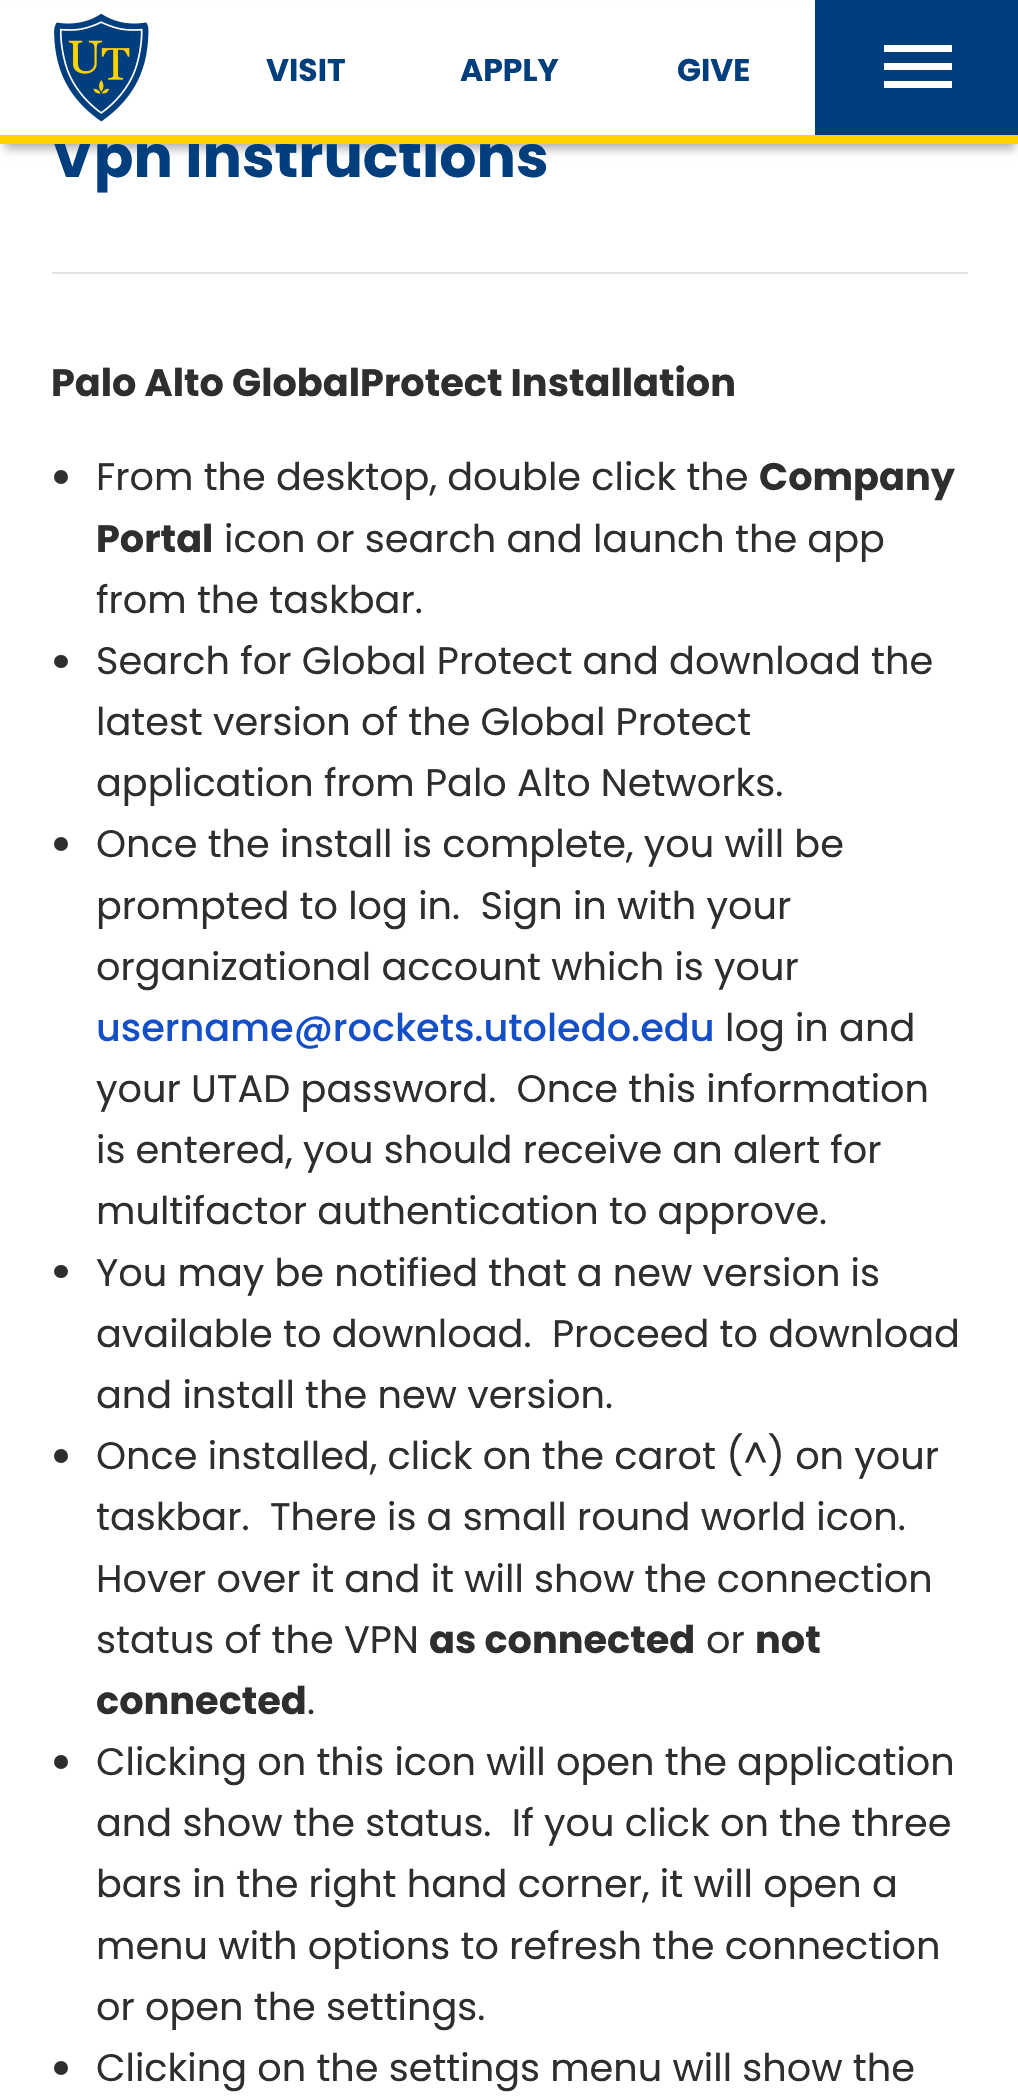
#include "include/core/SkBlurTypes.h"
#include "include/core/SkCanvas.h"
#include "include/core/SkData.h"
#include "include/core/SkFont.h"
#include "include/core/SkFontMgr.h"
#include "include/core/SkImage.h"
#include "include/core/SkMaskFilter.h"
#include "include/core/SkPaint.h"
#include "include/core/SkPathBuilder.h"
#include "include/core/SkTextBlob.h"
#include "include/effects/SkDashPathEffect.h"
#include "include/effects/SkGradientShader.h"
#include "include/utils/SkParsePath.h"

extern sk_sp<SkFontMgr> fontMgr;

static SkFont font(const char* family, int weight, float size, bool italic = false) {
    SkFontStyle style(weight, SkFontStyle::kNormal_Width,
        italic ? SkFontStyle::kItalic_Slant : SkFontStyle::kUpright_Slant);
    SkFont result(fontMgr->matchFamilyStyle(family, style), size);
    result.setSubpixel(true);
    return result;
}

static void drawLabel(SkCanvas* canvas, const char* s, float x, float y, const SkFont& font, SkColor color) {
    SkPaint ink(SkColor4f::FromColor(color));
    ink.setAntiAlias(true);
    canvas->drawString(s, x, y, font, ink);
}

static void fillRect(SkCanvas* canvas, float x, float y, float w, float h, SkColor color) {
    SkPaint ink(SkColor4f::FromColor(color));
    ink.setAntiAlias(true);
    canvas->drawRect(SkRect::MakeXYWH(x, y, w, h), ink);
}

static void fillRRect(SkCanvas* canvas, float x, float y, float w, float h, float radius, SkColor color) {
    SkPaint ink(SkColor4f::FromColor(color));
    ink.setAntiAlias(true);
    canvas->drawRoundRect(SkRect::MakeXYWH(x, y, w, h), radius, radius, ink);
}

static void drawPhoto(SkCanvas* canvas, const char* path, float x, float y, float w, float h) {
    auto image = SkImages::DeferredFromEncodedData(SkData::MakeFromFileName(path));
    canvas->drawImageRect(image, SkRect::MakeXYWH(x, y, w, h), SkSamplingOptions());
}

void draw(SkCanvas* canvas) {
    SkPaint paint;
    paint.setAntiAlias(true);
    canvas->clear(0xFFFFFFFF);
    paint.setColor(0x4D000000);
    paint.setMaskFilter(SkMaskFilter::MakeBlur(kNormal_SkBlurStyle, 4.5f));
    canvas->drawRect(SkRect::MakeXYWH(5, 14, 1010, 135), paint);
    paint.setMaskFilter(nullptr);
    SkFont font1 = font("Poppins", 700, 58.5f);
    drawLabel(canvas, "Vpn Instructions", 51, 177, font1, 0xFF003E7E);
    fillRect(canvas, 0, 6, 815, 129, 0xFFFFFFFF);
    fillRect(canvas, 0, 135, 1018, 9, 0xFFFFD200);
    drawPhoto(canvas, "assets/img1.png", 54, 14, 95, 108);
    SkFont font2 = font("Poppins", 700, 31.5f);
    drawLabel(canvas, "VISIT", 266, 81, font2, 0xFF003E7E);
    drawLabel(canvas, "APPLY", 460, 81, font2, 0xFF003E7E);
    drawLabel(canvas, "GIVE", 677, 81, font2, 0xFF003E7E);
    fillRect(canvas, 815, 0, 203, 135, 0xFF003E7E);
    fillRect(canvas, 884, 45, 68, 7, 0xFFFFFFFF);
    fillRect(canvas, 884, 63, 68, 7, 0xFFFFFFFF);
    fillRect(canvas, 884, 81, 68, 7, 0xFFFFFFFF);
    fillRect(canvas, 52, 272, 916, 2, 0xFFE1E1E1);
    SkFont font3 = font("Poppins", 700, 38.25f);
    drawLabel(canvas, "Palo Alto GlobalProtect Installation", 51, 396, font3, 0xFF2E2E2D);
    paint.setColor(0xFF2E2E2D);
    canvas->drawCircle(61, 477, 7, paint);
    SkFont font4 = font("Poppins", 400, 38.25f);
    drawLabel(canvas, "From the desktop, double click the", 96, 490, font4, 0xFF2E2E2D);
    drawLabel(canvas, "Company", 759, 490, font3, 0xFF2E2E2D);
    drawLabel(canvas, "Portal", 96, 552, font3, 0xFF2E2E2D);
    drawLabel(canvas, "icon or search and launch the app", 224, 552, font4, 0xFF2E2E2D);
    drawLabel(canvas, "from the taskbar.", 96, 613, font4, 0xFF2E2E2D);
    fillRRect(canvas, 54, 655, 14, 13, 6.5f, 0xFF2E2E2D);
    drawLabel(canvas, "Search for Global Protect and download the", 96, 674, font4, 0xFF2E2E2D);
    drawLabel(canvas, "latest version of the Global Protect", 96, 735, font4, 0xFF2E2E2D);
    drawLabel(canvas, "application from Palo Alto Networks.", 96, 796, font4, 0xFF2E2E2D);
    canvas->drawCircle(61, 844, 7, paint);
    drawLabel(canvas, "Once the install is complete, you will be", 96, 857, font4, 0xFF2E2E2D);
    drawLabel(canvas, "prompted to log in.  Sign in with your", 96, 919, font4, 0xFF2E2E2D);
    drawLabel(canvas, "organizational account which is your", 96, 980, font4, 0xFF2E2E2D);
    SkFont font5 = font("Poppins", 500, 38.25f);
    drawLabel(canvas, "username@rockets.utoledo.edu", 96, 1041, font5, 0xFF134FC9);
    drawLabel(canvas, "log in and", 725, 1041, font4, 0xFF2E2E2D);
    drawLabel(canvas, "your UTAD password.  Once this information", 96, 1102, font4, 0xFF2E2E2D);
    drawLabel(canvas, "is entered, you should receive an alert for", 96, 1163, font4, 0xFF2E2E2D);
    drawLabel(canvas, "multifactor authentication to approve.", 96, 1224, font4, 0xFF2E2E2D);
    fillRRect(canvas, 54, 1265, 14, 13, 6.5f, 0xFF2E2E2D);
    drawLabel(canvas, "You may be notified that a new version is", 96, 1286, font4, 0xFF2E2E2D);
    drawLabel(canvas, "available to download.  Proceed to download", 96, 1347, font4, 0xFF2E2E2D);
    drawLabel(canvas, "and install the new version.", 96, 1408, font4, 0xFF2E2E2D);
    canvas->drawCircle(61, 1456, 7, paint);
    drawLabel(canvas, "Once installed, click on the carot (^) on your", 96, 1469, font4, 0xFF2E2E2D);
    drawLabel(canvas, "taskbar.  There is a small round world icon.", 96, 1530, font4, 0xFF2E2E2D);
    drawLabel(canvas, "Hover over it and it will show the connection", 96, 1592, font4, 0xFF2E2E2D);
    drawLabel(canvas, "status of the VPN", 96, 1653, font4, 0xFF2E2E2D);
    drawLabel(canvas, "as connected", 429, 1653, font3, 0xFF2E2E2D);
    drawLabel(canvas, "or", 706, 1653, font4, 0xFF2E2E2D);
    drawLabel(canvas, "not", 755, 1653, font3, 0xFF2E2E2D);
    drawLabel(canvas, "connected", 96, 1714, font3, 0xFF2E2E2D);
    drawLabel(canvas, ".", 307, 1714, font4, 0xFF2E2E2D);
    canvas->drawCircle(61, 1762, 7, paint);
    drawLabel(canvas, "Clicking on this icon will open the application", 96, 1775, font4, 0xFF2E2E2D);
    drawLabel(canvas, "and show the status.  If you click on the three", 96, 1836, font4, 0xFF2E2E2D);
    drawLabel(canvas, "bars in the right hand corner, it will open a", 96, 1897, font4, 0xFF2E2E2D);
    drawLabel(canvas, "menu with options to refresh the connection", 96, 1959, font4, 0xFF2E2E2D);
    drawLabel(canvas, "or open the settings.", 96, 2020, font4, 0xFF2E2E2D);
    canvas->drawCircle(61, 2068, 7, paint);
    drawLabel(canvas, "Clicking on the settings menu will show the", 96, 2081, font4, 0xFF2E2E2D);
}
